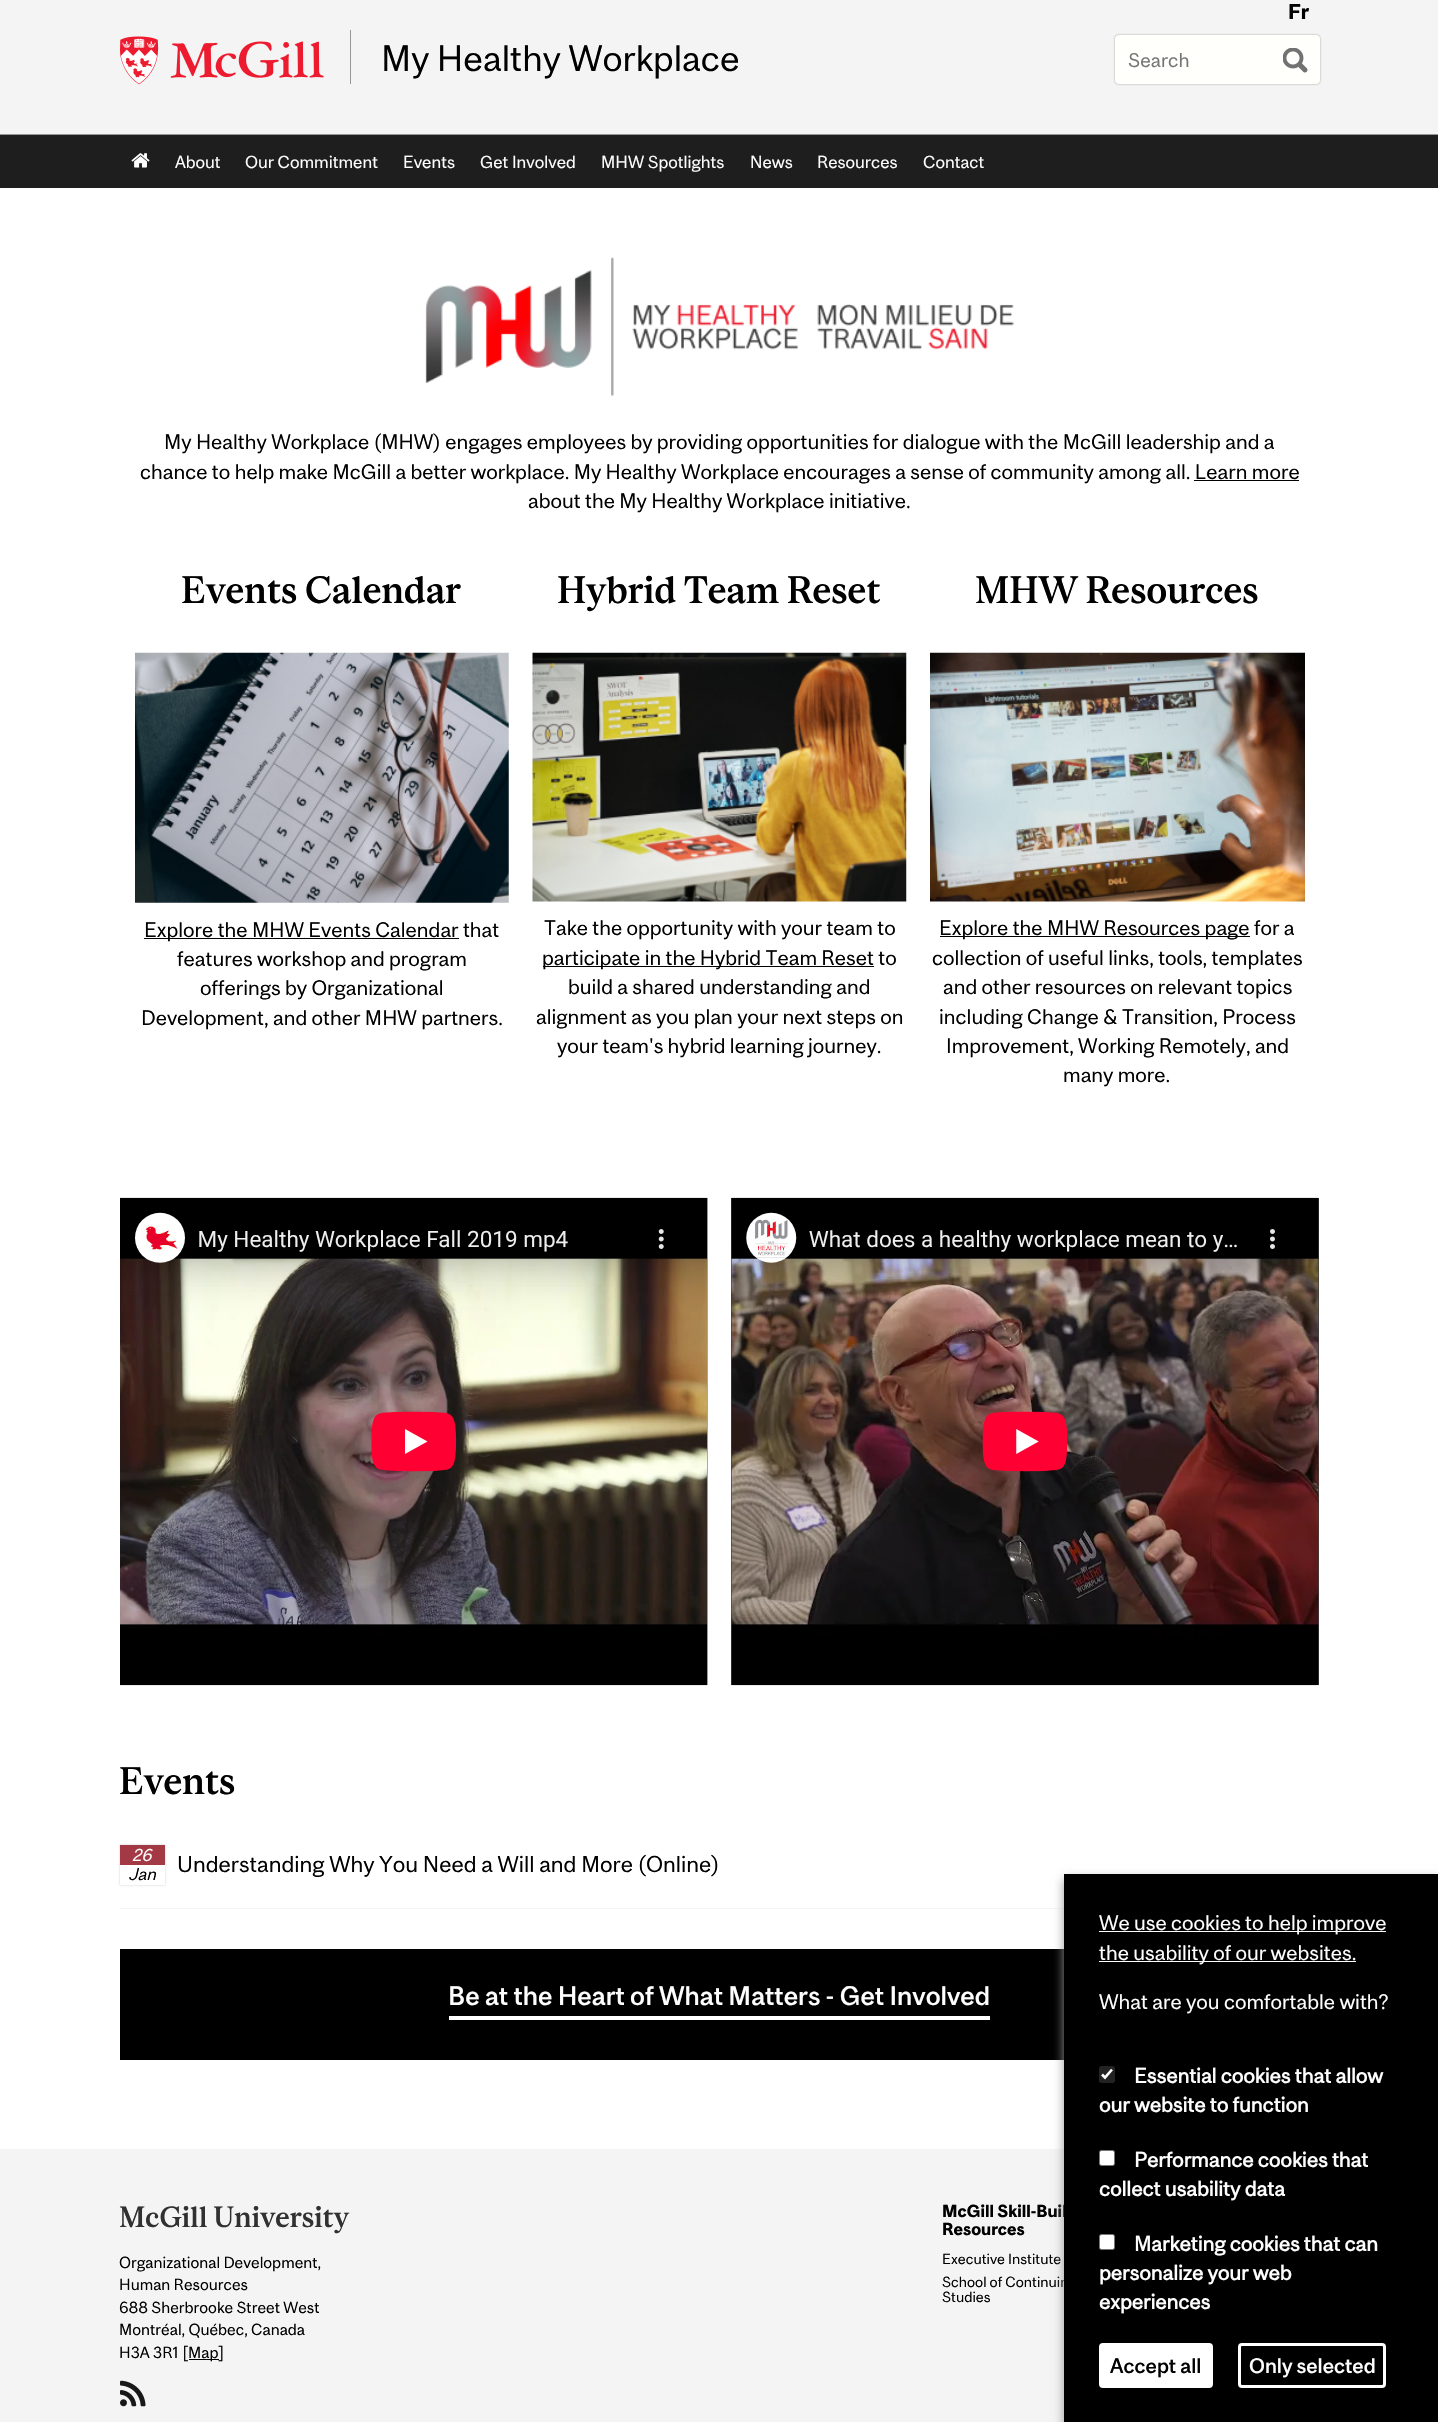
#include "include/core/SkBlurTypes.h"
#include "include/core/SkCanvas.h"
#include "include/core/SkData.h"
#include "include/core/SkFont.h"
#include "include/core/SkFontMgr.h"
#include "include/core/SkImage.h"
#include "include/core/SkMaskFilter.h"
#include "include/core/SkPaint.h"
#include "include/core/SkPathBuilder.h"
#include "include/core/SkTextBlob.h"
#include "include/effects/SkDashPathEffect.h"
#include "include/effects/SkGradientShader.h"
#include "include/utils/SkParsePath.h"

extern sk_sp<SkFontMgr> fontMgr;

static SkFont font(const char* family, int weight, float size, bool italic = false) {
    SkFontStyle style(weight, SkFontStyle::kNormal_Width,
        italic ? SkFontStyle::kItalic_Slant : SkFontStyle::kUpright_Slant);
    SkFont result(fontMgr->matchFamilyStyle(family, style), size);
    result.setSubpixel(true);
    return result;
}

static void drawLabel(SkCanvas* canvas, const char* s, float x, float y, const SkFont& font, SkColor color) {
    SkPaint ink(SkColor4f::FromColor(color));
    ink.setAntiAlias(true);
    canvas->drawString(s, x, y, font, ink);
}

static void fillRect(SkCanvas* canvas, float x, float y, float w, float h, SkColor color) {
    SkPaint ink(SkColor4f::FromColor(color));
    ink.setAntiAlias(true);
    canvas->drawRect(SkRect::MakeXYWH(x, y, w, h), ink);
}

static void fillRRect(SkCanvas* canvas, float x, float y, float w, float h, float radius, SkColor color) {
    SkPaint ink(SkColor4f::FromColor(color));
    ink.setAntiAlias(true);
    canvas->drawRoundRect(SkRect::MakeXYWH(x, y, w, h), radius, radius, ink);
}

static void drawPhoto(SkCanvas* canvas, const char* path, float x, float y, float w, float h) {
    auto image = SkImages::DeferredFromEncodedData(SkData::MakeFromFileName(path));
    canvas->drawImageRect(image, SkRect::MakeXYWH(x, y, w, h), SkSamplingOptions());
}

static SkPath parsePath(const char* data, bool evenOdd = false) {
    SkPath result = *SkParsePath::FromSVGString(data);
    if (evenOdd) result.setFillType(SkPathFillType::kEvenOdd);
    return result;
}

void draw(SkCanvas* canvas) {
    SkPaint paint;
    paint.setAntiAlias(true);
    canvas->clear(0xFFFFFFFF);
    fillRect(canvas, 0, 0, 1438, 134, 0xFFF4F4F4);
    fillRect(canvas, 0, 134, 1438, 1, 0xFF979797);
    SkFont font1 = font("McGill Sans", 700, 20);
    drawLabel(canvas, "Fr", 1288, 19, font1, 0xFF000000);
    drawPhoto(canvas, "assets/img1.png", 120, 36, 204, 49);
    fillRect(canvas, 350, 30, 1, 54, 0xFF979797);
    SkFont font2 = font("McGill Sans", 400, 34.25f);
    drawLabel(canvas, "My Healthy Workplace", 381, 71, font2, 0xFF000000);
    paint.setColor(0x66000000);
    paint.setMaskFilter(SkMaskFilter::MakeBlur(kNormal_SkBlurStyle, 1));
    canvas->drawRoundRect(SkRect::MakeXYWH(1115, 35, 205, 49), 4, 4, paint);
    paint.setMaskFilter(nullptr);
    fillRRect(canvas, 1115, 35, 205, 49, 4, 0xFFFFFFFC);
    SkFont font3 = font("McGill Sans", 400, 18.5f);
    drawLabel(canvas, "Search", 1128, 67, font3, 0xFF757575);
    drawPhoto(canvas, "assets/img2.png", 1283, 48, 25, 25);
    fillRect(canvas, 0, 135, 1438, 53, 0xFF1E1E1E);
    drawPhoto(canvas, "assets/img3.png", 131, 153, 19, 15);
    SkFont font4 = font("McGill Sans", 400, 16.25f);
    drawLabel(canvas, "About", 175, 168, font4, 0xFFFFFFFF);
    drawLabel(canvas, "Our Commitment", 245, 168, font4, 0xFFFFFFFF);
    drawLabel(canvas, "Events", 403, 168, font4, 0xFFFFFFFF);
    drawLabel(canvas, "Get Involved", 480, 168, font4, 0xFFFFFFFF);
    drawLabel(canvas, "MHW Spotlights", 601, 168, font4, 0xFFFFFFFF);
    drawLabel(canvas, "News", 750, 168, font4, 0xFFFFFFFF);
    drawLabel(canvas, "Resources", 817, 168, font4, 0xFFFFFFFF);
    drawLabel(canvas, "Contact", 923, 168, font4, 0xFFFFFFFF);
    drawPhoto(canvas, "assets/img4.png", 425, 257, 589, 140);
    SkFont font5 = font("McGill Sans", 400, 19.6f);
    drawLabel(canvas, "My Healthy Workplace (MHW) engages employees by providing opportunities for dialogue with the McGill leadership and a", 164, 449, font5, 0xFF000000);
    drawLabel(canvas, "chance to help make McGill a better workplace. My Healthy Workplace encourages a sense of community among all. Learn more", 140, 479, font5, 0xFF000000);
    fillRect(canvas, 1194, 480, 105, 1, 0xFF000000);
    drawLabel(canvas, "about the My Healthy Workplace initiative.", 528, 508, font5, 0xFF000000);
    SkFont font6 = font("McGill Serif", 500, 35.5f);
    drawLabel(canvas, "Events Calendar", 181, 603, font6, 0xFF000000);
    drawPhoto(canvas, "assets/img5.png", 135, 652, 374, 251);
    fillRect(canvas, 144, 938, 315, 1, 0xFF000000);
    drawLabel(canvas, "Explore the MHW Events Calendar that", 144, 937, font5, 0xFF000000);
    drawLabel(canvas, "features workshop and program", 177, 966, font5, 0xFF000000);
    drawLabel(canvas, "offerings by Organizational", 200, 995, font5, 0xFF000000);
    drawLabel(canvas, "Development, and other MHW partners.", 141, 1025, font5, 0xFF000000);
    drawLabel(canvas, "Hybrid Team Reset", 557, 603, font6, 0xFF000000);
    drawPhoto(canvas, "assets/img6.png", 532, 652, 375, 250);
    drawLabel(canvas, "Take the opportunity with your team to", 544, 935, font5, 0xFF000000);
    fillRect(canvas, 543, 966, 331, 1, 0xFF000000);
    drawLabel(canvas, "participate in the Hybrid Team Reset to", 542, 965, font5, 0xFF000000);
    drawLabel(canvas, "build a shared understanding and", 568, 994, font5, 0xFF000000);
    drawLabel(canvas, "alignment as you plan your next steps on", 536, 1024, font5, 0xFF000000);
    drawLabel(canvas, "your team's hybrid learning journey.", 557, 1053, font5, 0xFF000000);
    drawLabel(canvas, "MHW Resources", 975, 603, font6, 0xFF000000);
    drawPhoto(canvas, "assets/img7.png", 930, 652, 375, 250);
    fillRect(canvas, 940, 936, 310, 1, 0xFF000000);
    drawLabel(canvas, "Explore the MHW Resources page for a", 939, 935, font5, 0xFF000000);
    drawLabel(canvas, "collection of useful links, tools, templates", 932, 965, font5, 0xFF000000);
    drawLabel(canvas, "and other resources on relevant topics", 943, 994, font5, 0xFF000000);
    drawLabel(canvas, "including Change & Transition, Process", 939, 1024, font5, 0xFF000000);
    drawLabel(canvas, "Improvement, Working Remotely, and", 946, 1053, font5, 0xFF000000);
    drawLabel(canvas, "many more.", 1063, 1082, font5, 0xFF000000);
    drawPhoto(canvas, "assets/img8.png", 120, 1197, 588, 489);
    drawPhoto(canvas, "assets/img9.png", 731, 1197, 588, 489);
    drawLabel(canvas, "Events", 119, 1794, font6, 0xFF000000);
    fillRect(canvas, 120, 1908, 944, 1, 0xFFF5F5F5);
    paint.setColor(0x33000000);
    paint.setMaskFilter(SkMaskFilter::MakeBlur(kNormal_SkBlurStyle, 1));
    canvas->drawRect(SkRect::MakeXYWH(120, 1845, 45, 40), paint);
    paint.setMaskFilter(nullptr);
    fillRect(canvas, 120, 1845, 45, 20, 0xFFA33944);
    SkFont font7 = font("McGill Sans", 400, 16, true);
    drawLabel(canvas, "26", 132, 1861, font7, 0xFFFFFFFF);
    fillRect(canvas, 120, 1865, 45, 20, 0xFFFFFFFF);
    drawLabel(canvas, "Jan", 128, 1880, font7, 0xFF000000);
    SkFont font8 = font("McGill Sans", 400, 21.35f);
    drawLabel(canvas, "Understanding Why You Need a Will and More (Online)", 177, 1872, font8, 0xFF000000);
    fillRect(canvas, 120, 1949, 944, 111, 0xFF000000);
    SkFont font9 = font("McGill Sans", 500, 25);
    drawLabel(canvas, "Be at the Heart of What Matters - Get Involved", 448, 2005, font9, 0xFFFFFFFF);
    fillRect(canvas, 449, 2016, 541, 4, 0xFFFFFFFF);
    fillRect(canvas, 0, 2149, 1064, 273, 0xFFF4F4F4);
    SkFont font10 = font("McGill Serif", 500, 27.25f);
    drawLabel(canvas, "McGill University", 119, 2227, font10, 0xFF313131);
    SkFont font11 = font("McGill Sans", 400, 15);
    drawLabel(canvas, "Organizational Development,", 119, 2268, font11, 0xFF000000);
    drawLabel(canvas, "Human Resources", 119, 2290, font11, 0xFF000000);
    drawLabel(canvas, "688 Sherbrooke Street West", 119, 2313, font11, 0xFF000000);
    drawLabel(canvas, "Montréal, Québec, Canada", 119, 2335, font11, 0xFF000000);
    drawLabel(canvas, "H3A 3R1 [", 119, 2358, font11, 0xFF000000);
    fillRect(canvas, 189, 2359, 30, 1, 0xFF000000);
    drawLabel(canvas, "Map]", 188, 2358, font11, 0xFF000000);
    SkFont font12 = font("McGill Sans", 700, 16.25f);
    drawLabel(canvas, "McGill Skill-Buil", 942, 2217, font12, 0xFF000000);
    drawLabel(canvas, "Resources", 942, 2235, font12, 0xFF000000);
    SkFont font13 = font("McGill Sans", 400, 13.75f);
    drawLabel(canvas, "Executive Institute", 942, 2264, font13, 0xFF000000);
    drawLabel(canvas, "School of Continuin", 942, 2287, font13, 0xFF000000);
    drawLabel(canvas, "Studies", 942, 2302, font13, 0xFF000000);
    drawPhoto(canvas, "assets/img10.png", 120, 2380, 26, 27);
    paint.setColor(0xFF979799);
    paint.setMaskFilter(SkMaskFilter::MakeBlur(kNormal_SkBlurStyle, 5));
    canvas->drawRect(SkRect::MakeXYWH(1064, 1879, 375, 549), paint);
    paint.setMaskFilter(nullptr);
    fillRect(canvas, 1064, 1874, 374, 548, 0xFF000000);
    fillRect(canvas, 1099, 1931, 287, 1, 0xFFFFFFFF);
    drawLabel(canvas, "We use cookies to help improve", 1099, 1930, font5, 0xFFFFFFFF);
    fillRect(canvas, 1099, 1961, 257, 1, 0xFFFFFFFF);
    drawLabel(canvas, "the usability of our websites.", 1099, 1960, font5, 0xFFFFFFFF);
    drawLabel(canvas, "What are you comfortable with?", 1099, 2009, font5, 0xFFFFFFFF);
    fillRRect(canvas, 1099, 2066, 16, 17, 2.5f, 0xFF232323);
    paint.setStroke(true);
    paint.setStrokeWidth(2.6f);
    paint.setColor(0xFFFFFFFF);
    canvas->drawPath(parsePath("M1102 2074.5L1105 2077.5L1112 2069.5"), paint);
    SkFont font14 = font("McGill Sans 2", 700, 19.6f);
    drawLabel(canvas, "Essential cookies that allow", 1134, 2083, font14, 0xFFFFFFFF);
    drawLabel(canvas, "our website to function", 1099, 2112, font14, 0xFFFFFFFF);
    paint.setStroke(false);
    canvas->drawRoundRect(SkRect::MakeXYWH(1099.5f, 2150.5f, 15, 15), 2, 2, paint);
    paint.setStroke(true);
    paint.setStrokeWidth(1);
    paint.setColor(0xFF767676);
    canvas->drawRoundRect(SkRect::MakeXYWH(1099.5f, 2150.5f, 15, 15), 2, 2, paint);
    drawLabel(canvas, "Performance cookies that", 1134, 2167, font14, 0xFFFFFFFF);
    drawLabel(canvas, "collect usability data", 1099, 2196, font14, 0xFFFFFFFF);
    paint.setStroke(false);
    paint.setColor(0xFFFFFFFF);
    canvas->drawRoundRect(SkRect::MakeXYWH(1099.5f, 2234.5f, 15, 15), 2, 2, paint);
    paint.setStroke(true);
    paint.setColor(0xFF767676);
    canvas->drawRoundRect(SkRect::MakeXYWH(1099.5f, 2234.5f, 15, 15), 2, 2, paint);
    drawLabel(canvas, "Marketing cookies that can", 1134, 2251, font14, 0xFFFFFFFF);
    drawLabel(canvas, "personalize your web", 1099, 2280, font14, 0xFFFFFFFF);
    drawLabel(canvas, "experiences", 1099, 2309, font14, 0xFFFFFFFF);
    paint.setStroke(false);
    paint.setColor(0xFFFFFFFF);
    canvas->drawRoundRect(SkRect::MakeXYWH(1100.5f, 2344.5f, 111, 42), 2.5f, 2.5f, paint);
    paint.setStroke(true);
    paint.setStrokeWidth(3);
    canvas->drawRoundRect(SkRect::MakeXYWH(1100.5f, 2344.5f, 111, 42), 2.5f, 2.5f, paint);
    SkFont font15 = font("McGill Sans", 500, 19.6f);
    drawLabel(canvas, "Accept all", 1110, 2373, font15, 0xFF000000);
    canvas->drawRoundRect(SkRect::MakeXYWH(1239.5f, 2344.5f, 145, 42), 2.5f, 2.5f, paint);
    drawLabel(canvas, "Only selected", 1249, 2373, font15, 0xFFFFFFFF);
}
